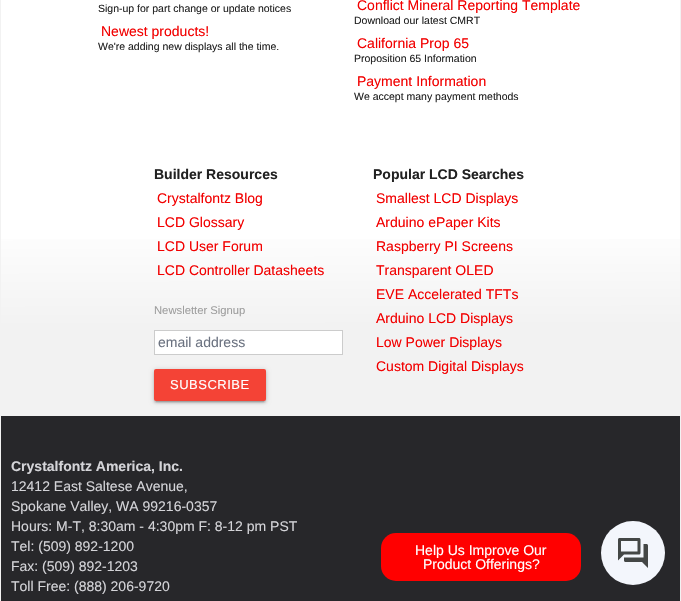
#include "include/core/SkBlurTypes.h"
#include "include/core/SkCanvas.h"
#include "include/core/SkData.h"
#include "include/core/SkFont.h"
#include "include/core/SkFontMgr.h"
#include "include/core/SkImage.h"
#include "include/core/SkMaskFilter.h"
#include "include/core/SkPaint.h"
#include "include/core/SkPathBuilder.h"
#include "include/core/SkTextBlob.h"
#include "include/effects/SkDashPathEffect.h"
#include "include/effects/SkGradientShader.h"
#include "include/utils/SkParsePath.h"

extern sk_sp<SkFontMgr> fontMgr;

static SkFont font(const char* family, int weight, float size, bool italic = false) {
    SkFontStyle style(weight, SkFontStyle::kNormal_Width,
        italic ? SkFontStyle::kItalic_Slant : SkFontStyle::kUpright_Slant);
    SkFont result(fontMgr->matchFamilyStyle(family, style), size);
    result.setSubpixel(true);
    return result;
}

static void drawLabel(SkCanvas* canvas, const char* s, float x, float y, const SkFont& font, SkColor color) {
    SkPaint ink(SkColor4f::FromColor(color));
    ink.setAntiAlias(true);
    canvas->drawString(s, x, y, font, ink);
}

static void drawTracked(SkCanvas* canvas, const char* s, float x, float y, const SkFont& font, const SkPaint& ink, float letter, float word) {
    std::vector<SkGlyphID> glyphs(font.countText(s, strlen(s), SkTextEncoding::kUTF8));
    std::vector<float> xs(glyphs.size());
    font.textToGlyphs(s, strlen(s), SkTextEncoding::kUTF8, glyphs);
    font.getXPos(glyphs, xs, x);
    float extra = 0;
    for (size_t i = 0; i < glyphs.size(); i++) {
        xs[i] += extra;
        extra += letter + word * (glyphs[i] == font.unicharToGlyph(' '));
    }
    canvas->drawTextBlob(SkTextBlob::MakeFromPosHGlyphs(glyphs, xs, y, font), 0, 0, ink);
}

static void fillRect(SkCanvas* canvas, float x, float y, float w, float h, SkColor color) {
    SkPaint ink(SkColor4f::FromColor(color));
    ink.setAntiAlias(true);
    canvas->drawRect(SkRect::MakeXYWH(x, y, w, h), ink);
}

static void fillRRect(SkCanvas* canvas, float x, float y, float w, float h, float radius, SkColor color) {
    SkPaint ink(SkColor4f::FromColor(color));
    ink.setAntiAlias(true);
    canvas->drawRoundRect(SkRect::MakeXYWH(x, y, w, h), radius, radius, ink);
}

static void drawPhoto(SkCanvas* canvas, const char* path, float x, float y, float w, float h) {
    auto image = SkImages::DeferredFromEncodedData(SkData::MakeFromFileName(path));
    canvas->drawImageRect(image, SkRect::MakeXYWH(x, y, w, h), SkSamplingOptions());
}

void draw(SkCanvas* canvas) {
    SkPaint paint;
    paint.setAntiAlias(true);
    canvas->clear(0xFFFFFFFF);
    paint.setStroke(true);
    paint.setStrokeWidth(1);
    paint.setColor(0xFFF2F2F2);
    canvas->drawRect(SkRect::MakeXYWH(0.5f, -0.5f, 680, 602), paint);
    paint.setStroke(false);
    {
        const SkColor colors[] = {0xFFFFFFFF, 0xFFF2F2F2};
        const float stops[] = {0.67f, 0.85f};
        const SkPoint ends[] = {{340, -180}, {341, 416}};
        paint.setShader(SkGradientShader::MakeLinear(ends, colors, stops, 2, SkTileMode::kClamp));
        paint.setAlpha(255);
    }
    canvas->drawRect(SkRect::MakeXYWH(1, 239, 679, 177), paint);
    SkFont font1 = font("Liberation Sans", 400, 10.5f);
    drawLabel(canvas, "Sign-up for part change or update notices", 98, 12, font1, 0xFF212121);
    SkFont font2 = font("Liberation Sans", 400, 14);
    drawLabel(canvas, "Newest products!", 101, 36, font2, 0xFFF20000);
    drawLabel(canvas, "We're adding new displays all the time.", 98, 50, font1, 0xFF212121);
    drawLabel(canvas, "Conflict Mineral Reporting Template", 357, 10, font2, 0xFFF20000);
    drawLabel(canvas, "Download our latest CMRT", 354, 24, font1, 0xFF212121);
    drawLabel(canvas, "California Prop 65", 357, 48, font2, 0xFFF20000);
    drawLabel(canvas, "Proposition 65 Information", 354, 62, font1, 0xFF212121);
    drawLabel(canvas, "Payment Information", 357, 86, font2, 0xFFF20000);
    drawLabel(canvas, "We accept many payment methods", 354, 100, font1, 0xFF212121);
    SkFont font3 = font("Liberation Sans", 700, 14);
    drawLabel(canvas, "Builder Resources", 154, 179, font3, 0xFF212121);
    drawLabel(canvas, "Crystalfontz Blog", 157, 203, font2, 0xFFF20000);
    drawLabel(canvas, "LCD Glossary", 157, 227, font2, 0xFFF20000);
    drawLabel(canvas, "LCD User Forum", 157, 251, font2, 0xFFF20000);
    drawLabel(canvas, "LCD Controller Datasheets", 157, 275, font2, 0xFFF20000);
    SkFont font4 = font("Liberation Sans", 400, 11.25f);
    drawLabel(canvas, "Newsletter Signup", 154, 314, font4, 0xFF9E9E9E);
    paint.setShader(nullptr);
    paint.setColor(0xFFFFFFFF);
    canvas->drawRect(SkRect::MakeXYWH(154.5f, 330.5f, 188, 24), paint);
    paint.setStroke(true);
    paint.setColor(0xFFCCCCCC);
    canvas->drawRect(SkRect::MakeXYWH(154.5f, 330.5f, 188, 24), paint);
    drawLabel(canvas, "email address", 158, 347, font2, 0xFF6B7280);
    paint.setStroke(false);
    paint.setColor(0x33000000);
    paint.setMaskFilter(SkMaskFilter::MakeBlur(kNormal_SkBlurStyle, 2.5f));
    canvas->drawRoundRect(SkRect::MakeXYWH(154, 370, 112, 32), 2, 2, paint);
    paint.setMaskFilter(nullptr);
    paint.setColor(0x1F000000);
    paint.setMaskFilter(SkMaskFilter::MakeBlur(kNormal_SkBlurStyle, 0.5f));
    canvas->drawRect(SkRect::MakeXYWH(156, 374, 108, 28), paint);
    paint.setMaskFilter(nullptr);
    paint.setColor(0x24000000);
    paint.setMaskFilter(SkMaskFilter::MakeBlur(kNormal_SkBlurStyle, 1));
    canvas->drawRoundRect(SkRect::MakeXYWH(154, 371, 112, 32), 2, 2, paint);
    paint.setMaskFilter(nullptr);
    fillRRect(canvas, 154, 369, 112, 32, 2, 0xFFF44336);
    SkFont font5 = font("Liberation Sans", 400, 13);
    paint.setColor(0xFFFFFFFF);
    drawTracked(canvas, "SUBSCRIBE", 170, 389, font5, paint, 0.5f, 0);
    drawLabel(canvas, "Popular LCD Searches", 373, 179, font3, 0xFF212121);
    drawLabel(canvas, "Smallest LCD Displays", 376, 203, font2, 0xFFF20000);
    drawLabel(canvas, "Arduino ePaper Kits", 376, 227, font2, 0xFFF20000);
    drawLabel(canvas, "Raspberry PI Screens", 376, 251, font2, 0xFFF20000);
    drawLabel(canvas, "Transparent OLED", 376, 275, font2, 0xFFF20000);
    drawLabel(canvas, "EVE Accelerated TFTs", 376, 299, font2, 0xFFF20000);
    drawLabel(canvas, "Arduino LCD Displays", 376, 323, font2, 0xFFF20000);
    drawLabel(canvas, "Low Power Displays", 376, 347, font2, 0xFFF20000);
    drawLabel(canvas, "Custom Digital Displays", 376, 371, font2, 0xFFF20000);
    fillRect(canvas, 1, 416, 679, 185, 0xFF27272A);
    drawLabel(canvas, "Crystalfontz America, Inc.", 11, 471, font3, 0xFFD4D4D8);
    drawLabel(canvas, "12412 East Saltese Avenue,", 11, 491, font2, 0xFFD4D4D8);
    drawLabel(canvas, "Spokane Valley, WA 99216-0357", 11, 511, font2, 0xFFD4D4D8);
    drawLabel(canvas, "Hours: M-T, 8:30am - 4:30pm F: 8-12 pm PST", 11, 531, font2, 0xFFD4D4D8);
    drawLabel(canvas, "Tel: (509) 892-1200", 11, 551, font2, 0xFFD4D4D8);
    drawLabel(canvas, "Fax: (509) 892-1203", 11, 571, font2, 0xFFD4D4D8);
    drawLabel(canvas, "Toll Free: (888) 206-9720", 11, 591, font2, 0xFFD4D4D8);
    paint.setColor(0xFFF3F6FC);
    canvas->drawCircle(633, 553, 32, paint);
    drawPhoto(canvas, "assets/img1.png", 618, 538, 30, 30);
    fillRRect(canvas, 381, 533, 200, 48, 15, 0xFFFF0000);
    drawLabel(canvas, "Help Us Improve Our", 415, 555, font2, 0xFFFFFFFF);
    drawLabel(canvas, "Product Offerings?", 423, 569, font2, 0xFFFFFFFF);
}
